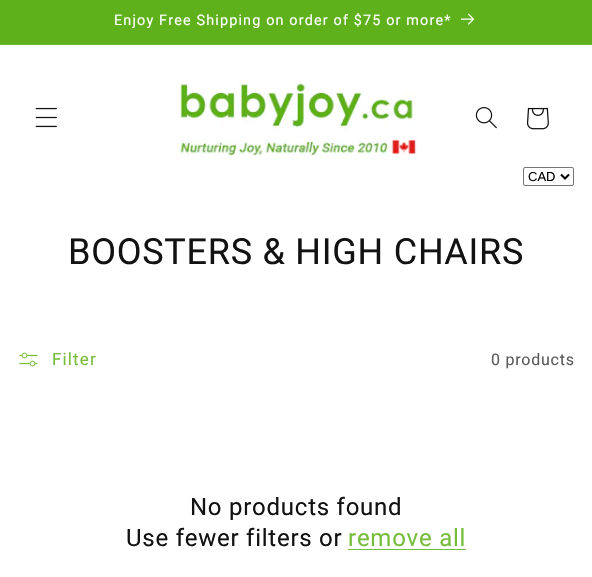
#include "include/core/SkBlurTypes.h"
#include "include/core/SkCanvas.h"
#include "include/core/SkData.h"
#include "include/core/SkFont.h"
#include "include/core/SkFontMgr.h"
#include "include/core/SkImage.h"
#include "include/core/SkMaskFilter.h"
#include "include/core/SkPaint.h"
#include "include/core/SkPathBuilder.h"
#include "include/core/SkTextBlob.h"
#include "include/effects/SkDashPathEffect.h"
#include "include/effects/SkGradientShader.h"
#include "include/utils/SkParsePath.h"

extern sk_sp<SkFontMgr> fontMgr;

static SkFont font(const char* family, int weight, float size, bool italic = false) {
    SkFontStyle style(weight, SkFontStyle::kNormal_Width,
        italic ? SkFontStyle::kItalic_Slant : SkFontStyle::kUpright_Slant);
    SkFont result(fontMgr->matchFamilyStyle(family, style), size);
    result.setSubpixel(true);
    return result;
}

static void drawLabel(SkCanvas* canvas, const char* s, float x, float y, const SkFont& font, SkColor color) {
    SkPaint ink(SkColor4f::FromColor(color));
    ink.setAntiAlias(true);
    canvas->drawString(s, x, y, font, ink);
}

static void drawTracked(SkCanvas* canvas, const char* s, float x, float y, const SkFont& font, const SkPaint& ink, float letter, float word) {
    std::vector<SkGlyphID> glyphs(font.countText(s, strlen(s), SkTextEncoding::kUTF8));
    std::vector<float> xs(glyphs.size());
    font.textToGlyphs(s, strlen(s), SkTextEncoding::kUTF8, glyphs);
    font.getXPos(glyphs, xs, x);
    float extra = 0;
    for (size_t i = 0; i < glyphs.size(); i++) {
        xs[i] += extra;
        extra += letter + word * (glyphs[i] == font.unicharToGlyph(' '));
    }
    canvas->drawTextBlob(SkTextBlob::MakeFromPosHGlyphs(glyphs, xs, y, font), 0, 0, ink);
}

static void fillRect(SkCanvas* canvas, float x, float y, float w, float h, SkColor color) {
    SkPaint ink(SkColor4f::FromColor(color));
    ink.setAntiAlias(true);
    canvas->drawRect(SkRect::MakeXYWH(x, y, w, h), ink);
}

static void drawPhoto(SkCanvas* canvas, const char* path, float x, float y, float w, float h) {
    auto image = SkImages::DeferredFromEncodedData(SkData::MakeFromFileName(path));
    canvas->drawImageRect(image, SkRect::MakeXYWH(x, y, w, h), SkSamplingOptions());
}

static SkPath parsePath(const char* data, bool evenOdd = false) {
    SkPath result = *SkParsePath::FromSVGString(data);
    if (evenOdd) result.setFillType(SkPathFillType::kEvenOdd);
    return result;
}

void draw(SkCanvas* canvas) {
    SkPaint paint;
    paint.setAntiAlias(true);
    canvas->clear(0xFFFFFFFF);
    fillRect(canvas, 0, 0, 592, 44, 0xFF5EB11A);
    fillRect(canvas, 0, 44, 592, 1, 0xFF6BB72C);
    SkFont font1 = font("Roboto", 400, 14.4f);
    paint.setColor(0xFFFFFFFF);
    drawTracked(canvas, "Enjoy Free Shipping on order of $75 or more*", 114, 25, font1, paint, 1.15f, 0);
    drawPhoto(canvas, "assets/img1.png", 461, 13, 13, 12);
    drawPhoto(canvas, "assets/img2.png", 35, 107, 22, 21);
    drawPhoto(canvas, "assets/img3.png", 179, 79, 239, 81);
    drawPhoto(canvas, "assets/img4.png", 475, 107, 22, 22);
    drawPhoto(canvas, "assets/img5.png", 526, 107, 23, 23);
    paint.setStroke(true);
    paint.setStrokeWidth(1);
    paint.setColor(0xFF767676);
    canvas->drawRoundRect(SkRect::MakeXYWH(523.5f, 167.5f, 50, 18), 1.5f, 1.5f, paint);
    paint.setStrokeWidth(2);
    paint.setColor(0xFF000000);
    canvas->drawPath(parsePath("M561 174.5L565 178.5L569 174.5"), paint);
    SkFont font2 = font("Liberation Sans", 400, 13);
    drawLabel(canvas, "CAD", 528, 181, font2, 0xFF000000);
    SkFont font3 = font("Roboto", 400, 36);
    paint.setStroke(false);
    paint.setColor(0xFF121212);
    drawTracked(canvas, "BOOSTERS & HIGH CHAIRS", 68, 264, font3, paint, 0.75f, 0);
    drawPhoto(canvas, "assets/img6.png", 19, 352, 19, 15);
    SkFont font4 = font("Roboto", 400, 17);
    paint.setColor(0xFF76BD3C);
    drawTracked(canvas, "Filter", 52, 365, font4, paint, 1.15f, 0);
    SkFont font5 = font("Roboto", 400, 16);
    paint.setColor(0xFF595959);
    drawTracked(canvas, "0 products", 491, 365, font5, paint, 0.75f, 0);
    SkFont font6 = font("Roboto", 400, 24);
    paint.setColor(0xFF121212);
    drawTracked(canvas, "No products found", 190, 515, font6, paint, 0.75f, 0);
    drawTracked(canvas, "Use fewer filters or", 126, 546, font6, paint, 0.75f, 0);
    paint.setColor(0xFF76BD3C);
    drawTracked(canvas, "remove all", 348, 546, font6, paint, 0.75f, 0);
    fillRect(canvas, 348, 549, 118, 1, 0xFF76BD3C);
}
